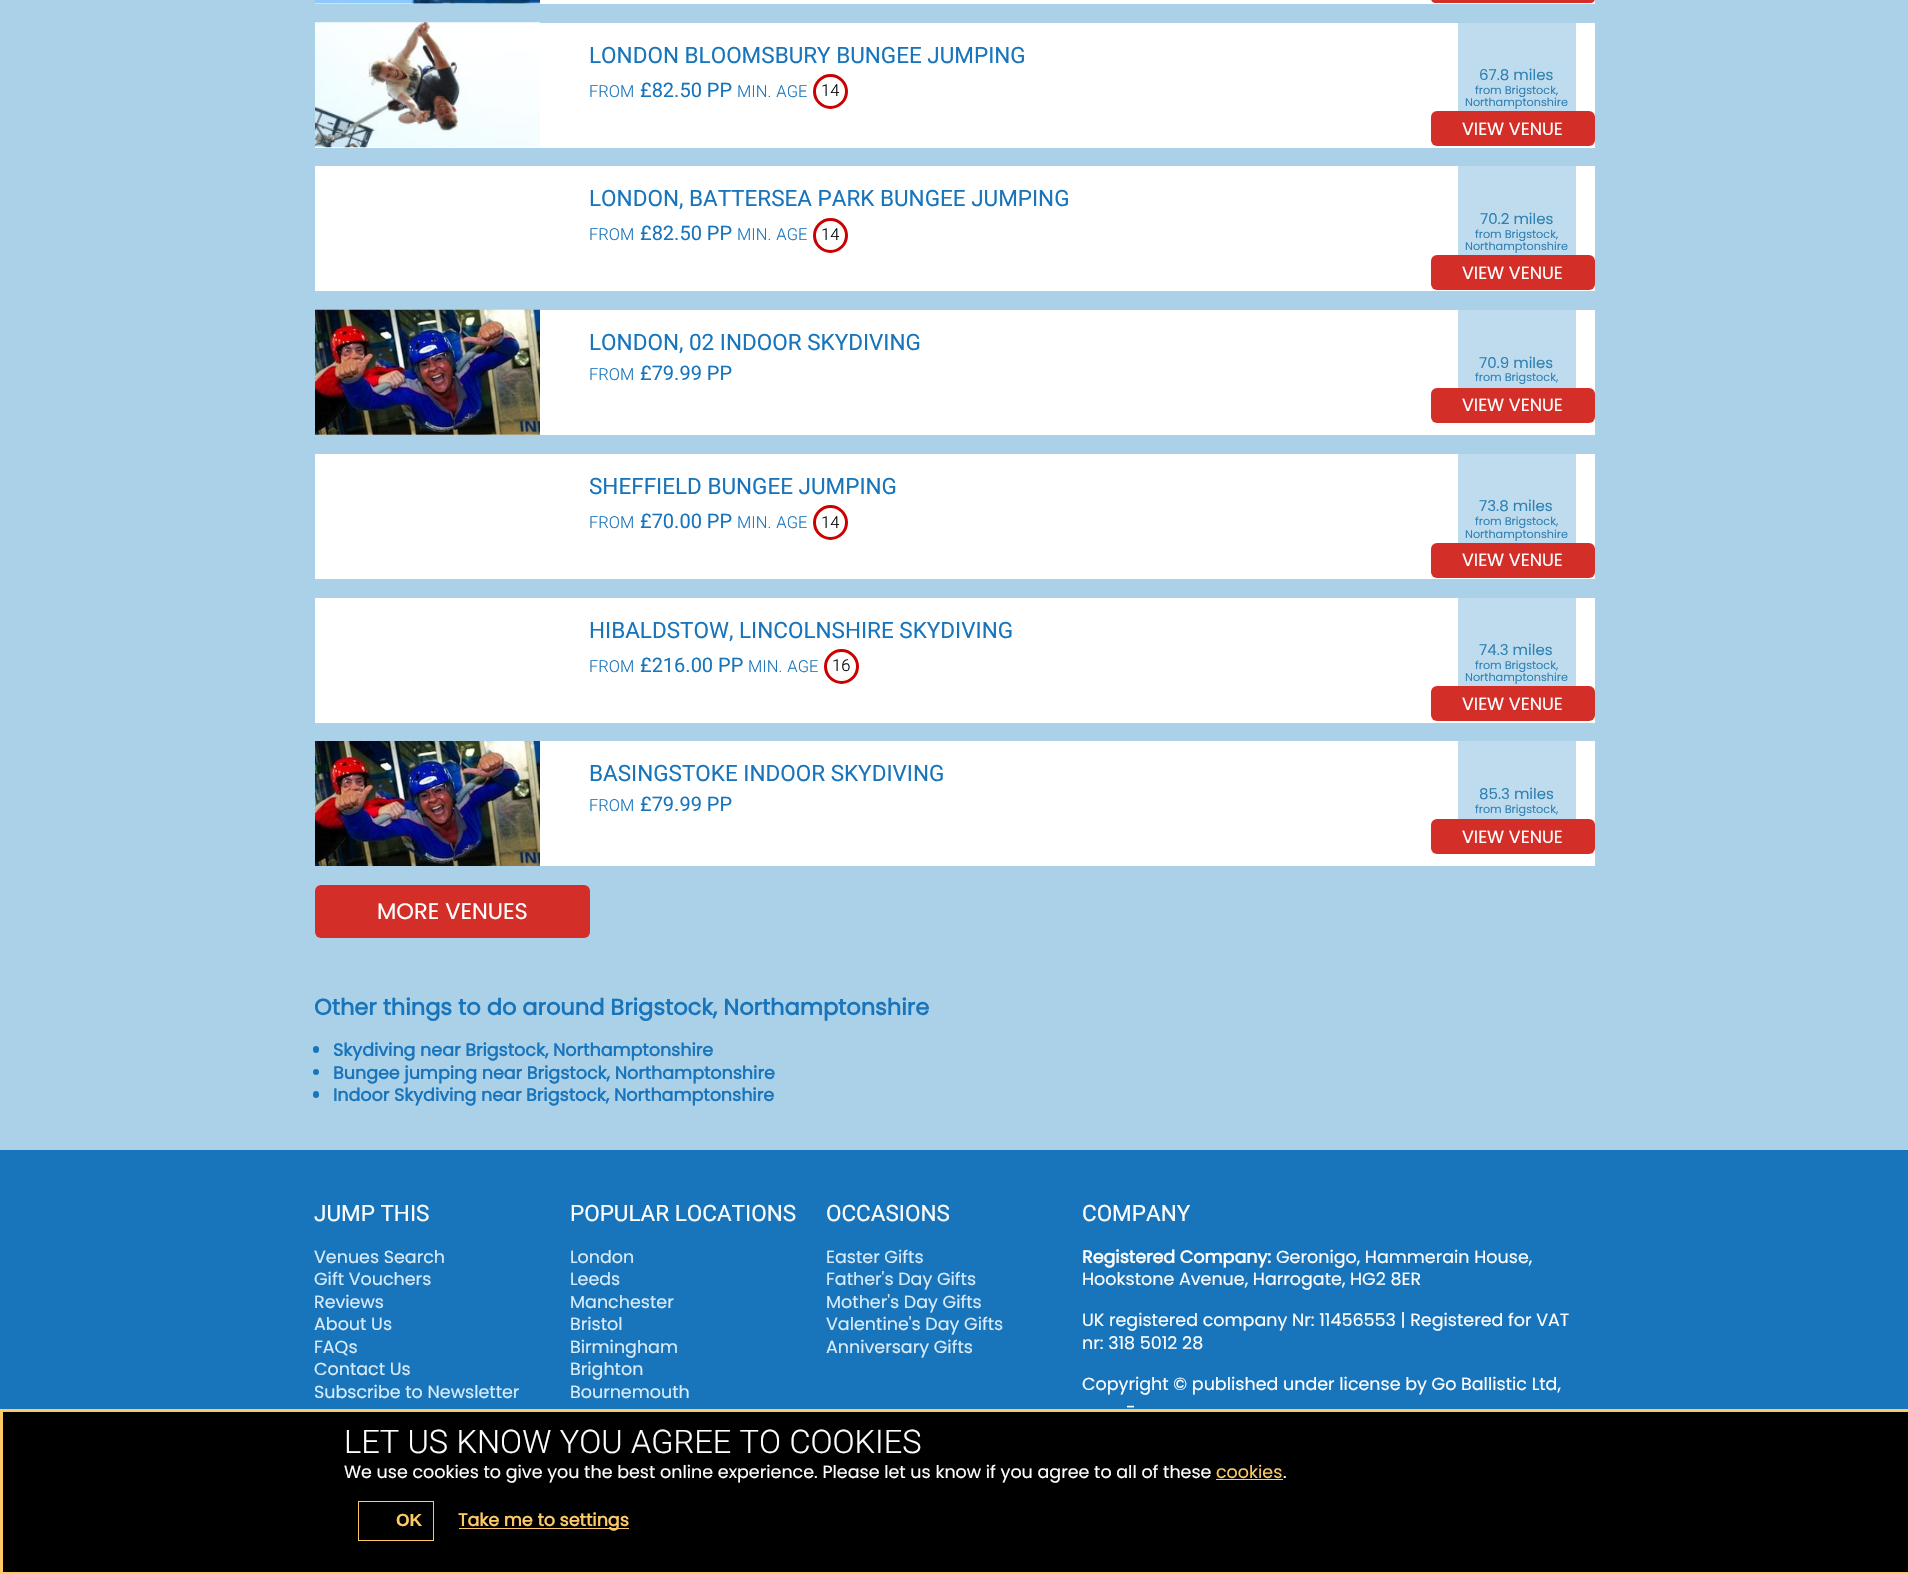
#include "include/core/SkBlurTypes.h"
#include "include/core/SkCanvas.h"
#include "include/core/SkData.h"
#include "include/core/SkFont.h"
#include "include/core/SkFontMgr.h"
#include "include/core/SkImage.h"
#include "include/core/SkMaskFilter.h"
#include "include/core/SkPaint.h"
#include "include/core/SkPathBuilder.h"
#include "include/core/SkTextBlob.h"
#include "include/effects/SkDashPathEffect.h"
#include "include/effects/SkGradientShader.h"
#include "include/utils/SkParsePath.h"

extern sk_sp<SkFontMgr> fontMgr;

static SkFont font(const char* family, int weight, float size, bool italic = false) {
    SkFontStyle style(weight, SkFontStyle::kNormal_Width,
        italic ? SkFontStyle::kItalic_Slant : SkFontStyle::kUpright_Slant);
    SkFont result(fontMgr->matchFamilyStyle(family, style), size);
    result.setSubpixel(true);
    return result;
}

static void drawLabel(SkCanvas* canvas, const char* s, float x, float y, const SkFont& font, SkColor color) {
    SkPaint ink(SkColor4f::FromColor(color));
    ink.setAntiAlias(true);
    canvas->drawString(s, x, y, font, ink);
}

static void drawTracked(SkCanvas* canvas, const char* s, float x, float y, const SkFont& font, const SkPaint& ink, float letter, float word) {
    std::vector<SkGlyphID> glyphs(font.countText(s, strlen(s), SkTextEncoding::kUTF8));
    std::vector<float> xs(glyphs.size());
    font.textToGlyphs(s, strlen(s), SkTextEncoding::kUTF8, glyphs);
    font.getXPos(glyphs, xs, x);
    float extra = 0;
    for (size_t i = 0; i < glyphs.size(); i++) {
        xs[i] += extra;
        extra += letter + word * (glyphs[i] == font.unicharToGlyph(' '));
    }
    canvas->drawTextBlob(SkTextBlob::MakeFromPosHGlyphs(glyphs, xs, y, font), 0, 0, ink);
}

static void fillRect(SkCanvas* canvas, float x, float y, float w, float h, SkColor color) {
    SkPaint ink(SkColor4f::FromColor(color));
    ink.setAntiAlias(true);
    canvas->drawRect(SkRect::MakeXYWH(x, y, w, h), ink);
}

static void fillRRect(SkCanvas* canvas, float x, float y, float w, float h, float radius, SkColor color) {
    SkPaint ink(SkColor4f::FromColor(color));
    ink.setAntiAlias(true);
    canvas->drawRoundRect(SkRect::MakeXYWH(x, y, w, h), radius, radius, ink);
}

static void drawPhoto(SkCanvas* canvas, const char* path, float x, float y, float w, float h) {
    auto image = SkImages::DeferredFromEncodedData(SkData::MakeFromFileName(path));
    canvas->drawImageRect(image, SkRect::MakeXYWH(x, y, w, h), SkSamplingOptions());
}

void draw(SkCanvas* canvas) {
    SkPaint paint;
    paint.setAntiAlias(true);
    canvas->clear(0xFFABD1E9);
    fillRect(canvas, 315, 0, 1280, 4, 0xFFFFFFFF);
    drawPhoto(canvas, "assets/img1.png", 315, 0, 225, 4);
    fillRRect(canvas, 1431, -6, 164, 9, 6, 0xFFD32E28);
    fillRect(canvas, 315, 23, 1280, 125, 0xFFFFFFFF);
    drawPhoto(canvas, "assets/img2.png", 315, 22, 225, 126);
    SkFont font1 = font("Roboto", 400, 22.5f);
    drawLabel(canvas, "LONDON BLOOMSBURY BUNGEE JUMPING", 589, 63, font1, 0xFF1975BB);
    SkFont font2 = font("Roboto", 300, 16.5f);
    drawLabel(canvas, "FROM", 589, 97, font2, 0xFF1975BB);
    SkFont font3 = font("Roboto", 400, 20);
    drawLabel(canvas, "£82.50 PP", 640, 97, font3, 0xFF1975BB);
    paint.setColor(0xFF1975BB);
    drawTracked(canvas, "MIN. AGE", 737, 97, font2, paint, 0, 1);
    paint.setStroke(true);
    paint.setStrokeWidth(3);
    paint.setColor(0xFFCC0000);
    canvas->drawCircle(830.5f, 91.5f, 16, paint);
    drawLabel(canvas, "14", 821, 96, font2, 0xFF000000);
    fillRect(canvas, 1458, 23, 118, 88, 0xFFBFDCEE);
    SkFont font4 = font("Poppins", 400, 15);
    drawLabel(canvas, "67.8 miles", 1479, 80, font4, 0xFF2F80B3);
    SkFont font5 = font("Poppins", 400, 11.25f);
    drawLabel(canvas, "from Brigstock,", 1475, 94, font5, 0xFF2F80B3);
    drawLabel(canvas, "Northamptonshire", 1465, 106, font5, 0xFF2F80B3);
    fillRRect(canvas, 1431, 111, 164, 35, 6, 0xFFD32E28);
    SkFont font6 = font("Poppins", 400, 17.5f);
    drawLabel(canvas, "VIEW VENUE", 1462, 135, font6, 0xFFFFFFFF);
    fillRect(canvas, 315, 166, 1280, 125, 0xFFFFFFFF);
    drawLabel(canvas, "LONDON, BATTERSEA PARK BUNGEE JUMPING", 589, 206, font1, 0xFF1975BB);
    drawLabel(canvas, "FROM", 589, 240, font2, 0xFF1975BB);
    drawLabel(canvas, "£82.50 PP", 640, 240, font3, 0xFF1975BB);
    paint.setStroke(false);
    paint.setColor(0xFF1975BB);
    drawTracked(canvas, "MIN. AGE", 737, 240, font2, paint, 0, 1);
    paint.setStroke(true);
    paint.setColor(0xFFCC0000);
    canvas->drawCircle(830.5f, 235.5f, 16, paint);
    drawLabel(canvas, "14", 821, 240, font2, 0xFF000000);
    fillRect(canvas, 1458, 166, 118, 89, 0xFFBFDCEE);
    drawLabel(canvas, "70.2 miles", 1480, 224, font4, 0xFF2F80B3);
    drawLabel(canvas, "from Brigstock,", 1475, 238, font5, 0xFF2F80B3);
    drawLabel(canvas, "Northamptonshire", 1465, 250, font5, 0xFF2F80B3);
    fillRRect(canvas, 1431, 255, 164, 35, 6, 0xFFD32E28);
    drawLabel(canvas, "VIEW VENUE", 1462, 279, font6, 0xFFFFFFFF);
    fillRect(canvas, 315, 310, 1280, 125, 0xFFFFFFFF);
    drawPhoto(canvas, "assets/img3.png", 315, 309, 225, 126);
    drawLabel(canvas, "LONDON, 02 INDOOR SKYDIVING", 589, 350, font1, 0xFF1975BB);
    drawLabel(canvas, "FROM", 589, 380, font2, 0xFF1975BB);
    drawLabel(canvas, "£79.99 PP", 640, 380, font3, 0xFF1975BB);
    fillRect(canvas, 1458, 310, 118, 78, 0xFFBFDCEE);
    drawLabel(canvas, "70.9 miles", 1479, 368, font4, 0xFF2F80B3);
    drawLabel(canvas, "from Brigstock,", 1475, 381, font5, 0xFF2F80B3);
    fillRRect(canvas, 1431, 388, 164, 35, 6, 0xFFD32E28);
    drawLabel(canvas, "VIEW VENUE", 1462, 411, font6, 0xFFFFFFFF);
    fillRect(canvas, 315, 454, 1280, 125, 0xFFFFFFFF);
    drawLabel(canvas, "SHEFFIELD BUNGEE JUMPING", 589, 494, font1, 0xFF1975BB);
    drawLabel(canvas, "FROM", 589, 528, font2, 0xFF1975BB);
    drawLabel(canvas, "£70.00 PP", 640, 528, font3, 0xFF1975BB);
    paint.setStroke(false);
    paint.setColor(0xFF1975BB);
    drawTracked(canvas, "MIN. AGE", 737, 528, font2, paint, 0, 1);
    paint.setStroke(true);
    paint.setColor(0xFFCC0000);
    canvas->drawCircle(830.5f, 522.5f, 16, paint);
    drawLabel(canvas, "14", 821, 528, font2, 0xFF000000);
    fillRect(canvas, 1458, 454, 118, 89, 0xFFBFDCEE);
    drawLabel(canvas, "73.8 miles", 1479, 511, font4, 0xFF2F80B3);
    drawLabel(canvas, "from Brigstock,", 1475, 525, font5, 0xFF2F80B3);
    drawLabel(canvas, "Northamptonshire", 1465, 538, font5, 0xFF2F80B3);
    fillRRect(canvas, 1431, 543, 164, 35, 6, 0xFFD32E28);
    drawLabel(canvas, "VIEW VENUE", 1462, 566, font6, 0xFFFFFFFF);
    fillRect(canvas, 315, 598, 1280, 125, 0xFFFFFFFF);
    drawLabel(canvas, "HIBALDSTOW, LINCOLNSHIRE SKYDIVING", 589, 638, font1, 0xFF1975BB);
    drawLabel(canvas, "FROM", 589, 672, font2, 0xFF1975BB);
    drawLabel(canvas, "£216.00 PP", 640, 672, font3, 0xFF1975BB);
    paint.setStroke(false);
    paint.setColor(0xFF1975BB);
    drawTracked(canvas, "MIN. AGE", 748, 672, font2, paint, 0, 1);
    paint.setStroke(true);
    paint.setColor(0xFFCC0000);
    canvas->drawCircle(841.5f, 666.5f, 16, paint);
    drawLabel(canvas, "16", 832, 671, font2, 0xFF000000);
    fillRect(canvas, 1458, 598, 118, 88, 0xFFBFDCEE);
    drawLabel(canvas, "74.3 miles", 1479, 655, font4, 0xFF2F80B3);
    drawLabel(canvas, "from Brigstock,", 1475, 669, font5, 0xFF2F80B3);
    drawLabel(canvas, "Northamptonshire", 1465, 681, font5, 0xFF2F80B3);
    fillRRect(canvas, 1431, 686, 164, 35, 6, 0xFFD32E28);
    drawLabel(canvas, "VIEW VENUE", 1462, 710, font6, 0xFFFFFFFF);
    fillRect(canvas, 540, 741, 1055, 125, 0xFFFFFFFF);
    drawPhoto(canvas, "assets/img4.png", 315, 741, 225, 125);
    drawLabel(canvas, "BASINGSTOKE INDOOR SKYDIVING", 589, 781, font1, 0xFF1975BB);
    drawLabel(canvas, "FROM", 589, 811, font2, 0xFF1975BB);
    drawLabel(canvas, "£79.99 PP", 640, 811, font3, 0xFF1975BB);
    fillRect(canvas, 1458, 741, 118, 78, 0xFFBFDCEE);
    drawLabel(canvas, "85.3 miles", 1479, 799, font4, 0xFF2F80B3);
    drawLabel(canvas, "from Brigstock,", 1475, 813, font5, 0xFF2F80B3);
    fillRRect(canvas, 1431, 819, 164, 35, 6, 0xFFD32E28);
    drawLabel(canvas, "VIEW VENUE", 1462, 843, font6, 0xFFFFFFFF);
    fillRRect(canvas, 315, 885, 275, 53, 6, 0xFFD32E28);
    SkFont font7 = font("Poppins", 400, 22.5f);
    drawLabel(canvas, "MORE VENUES", 377, 919, font7, 0xFFFFFFFF);
    SkFont font8 = font("Poppins", 700, 22.5f);
    drawLabel(canvas, "Other things to do around Brigstock, Northamptonshire", 314, 1015, font8, 0xFF1975BB);
    fillRRect(canvas, 313, 1046, 6, 7, 3, 0xFF1975BB);
    SkFont font9 = font("Poppins", 700, 17.5f);
    drawLabel(canvas, "Skydiving near Brigstock, Northamptonshire", 333, 1056, font9, 0xFF1975BB);
    paint.setStroke(false);
    paint.setColor(0xFF1975BB);
    canvas->drawCircle(316, 1072, 3, paint);
    drawLabel(canvas, "Bungee jumping near Brigstock, Northamptonshire", 333, 1079, font9, 0xFF1975BB);
    fillRRect(canvas, 313, 1091, 6, 7, 3, 0xFF1975BB);
    drawLabel(canvas, "Indoor Skydiving near Brigstock, Northamptonshire", 333, 1101, font9, 0xFF1975BB);
    fillRect(canvas, 0, 1150, 1908, 259, 0xFF1975BB);
    drawLabel(canvas, "JUMP THIS", 314, 1221, font1, 0xFFFFFFFF);
    drawLabel(canvas, "Venues Search", 314, 1263, font6, 0xFFD9ECFA);
    drawLabel(canvas, "Gift Vouchers", 314, 1285, font6, 0xFFD9ECFA);
    drawLabel(canvas, "Reviews", 314, 1308, font6, 0xFFD9ECFA);
    drawLabel(canvas, "About Us", 314, 1330, font6, 0xFFD9ECFA);
    drawLabel(canvas, "FAQs", 314, 1353, font6, 0xFFD9ECFA);
    drawLabel(canvas, "Contact Us", 314, 1375, font6, 0xFFD9ECFA);
    drawLabel(canvas, "Subscribe to Newsletter", 314, 1398, font6, 0xFFD9ECFA);
    drawLabel(canvas, "POPULAR LOCATIONS", 570, 1221, font1, 0xFFFFFFFF);
    drawLabel(canvas, "London", 570, 1263, font6, 0xFFD9ECFA);
    drawLabel(canvas, "Leeds", 570, 1285, font6, 0xFFD9ECFA);
    drawLabel(canvas, "Manchester", 570, 1308, font6, 0xFFD9ECFA);
    drawLabel(canvas, "Bristol", 570, 1330, font6, 0xFFD9ECFA);
    drawLabel(canvas, "Birmingham", 570, 1353, font6, 0xFFD9ECFA);
    drawLabel(canvas, "Brighton", 570, 1375, font6, 0xFFD9ECFA);
    drawLabel(canvas, "Bournemouth", 570, 1398, font6, 0xFFD9ECFA);
    drawLabel(canvas, "OCCASIONS", 826, 1221, font1, 0xFFFFFFFF);
    drawLabel(canvas, "Easter Gifts", 826, 1263, font6, 0xFFD9ECFA);
    drawLabel(canvas, "Father's Day Gifts", 826, 1285, font6, 0xFFD9ECFA);
    drawLabel(canvas, "Mother's Day Gifts", 826, 1308, font6, 0xFFD9ECFA);
    drawLabel(canvas, "Valentine's Day Gifts", 826, 1330, font6, 0xFFD9ECFA);
    drawLabel(canvas, "Anniversary Gifts", 826, 1353, font6, 0xFFD9ECFA);
    drawLabel(canvas, "COMPANY", 1082, 1221, font1, 0xFFFFFFFF);
    drawLabel(canvas, "Registered Company:", 1082, 1263, font9, 0xFFFFFFFF);
    drawLabel(canvas, "Geronigo, Hammerain House,", 1276, 1263, font6, 0xFFFFFFFF);
    drawLabel(canvas, "Hookstone Avenue, Harrogate, HG2 8ER", 1082, 1285, font6, 0xFFFFFFFF);
    drawLabel(canvas, "UK registered company Nr: 11456553 | Registered for VAT", 1082, 1326, font6, 0xFFFFFFFF);
    drawLabel(canvas, "nr: 318 5012 28", 1082, 1349, font6, 0xFFFFFFFF);
    drawLabel(canvas, "Copyright © published under license by Go Ballistic Ltd,", 1082, 1390, font6, 0xFFFFFFFF);
    drawLabel(canvas, "-", 1126, 1413, font6, 0xFFFFFFFF);
    paint.setColor(0xFF000000);
    canvas->drawRect(SkRect::MakeXYWH(1.5f, 1410.5f, 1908, 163), paint);
    paint.setStroke(true);
    paint.setColor(0xFFFECA64);
    canvas->drawRect(SkRect::MakeXYWH(1.5f, 1410.5f, 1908, 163), paint);
    SkFont font10 = font("Roboto", 300, 32.5f);
    paint.setStroke(false);
    paint.setColor(0xFFFFFFFF);
    drawTracked(canvas, "LET US KNOW YOU AGREE TO COOKIES", 344, 1453, font10, paint, 0, 0.5f);
    drawLabel(canvas, "We use cookies to give you the best online experience. Please let us know if you agree to all of these", 344, 1478, font6, 0xFFFFFFFF);
    drawLabel(canvas, "cookies", 1216, 1478, font6, 0xFFFECA64);
    fillRect(canvas, 1216, 1479, 67, 1, 0xFFFECA64);
    drawLabel(canvas, ".", 1283, 1478, font6, 0xFFFFFFFF);
    paint.setStroke(true);
    paint.setStrokeWidth(1);
    paint.setColor(0xFFFECA64);
    canvas->drawRect(SkRect::MakeXYWH(358.5f, 1501.5f, 75, 39), paint);
    SkFont font11 = font("Liberation Sans", 700, 17.5f);
    drawLabel(canvas, "OK", 396, 1526, font11, 0xFFFECA64);
    fillRect(canvas, 459, 1528, 170, 1, 0xFFFECA64);
    drawLabel(canvas, "Take me to settings", 458, 1526, font9, 0xFFFECA64);
}
